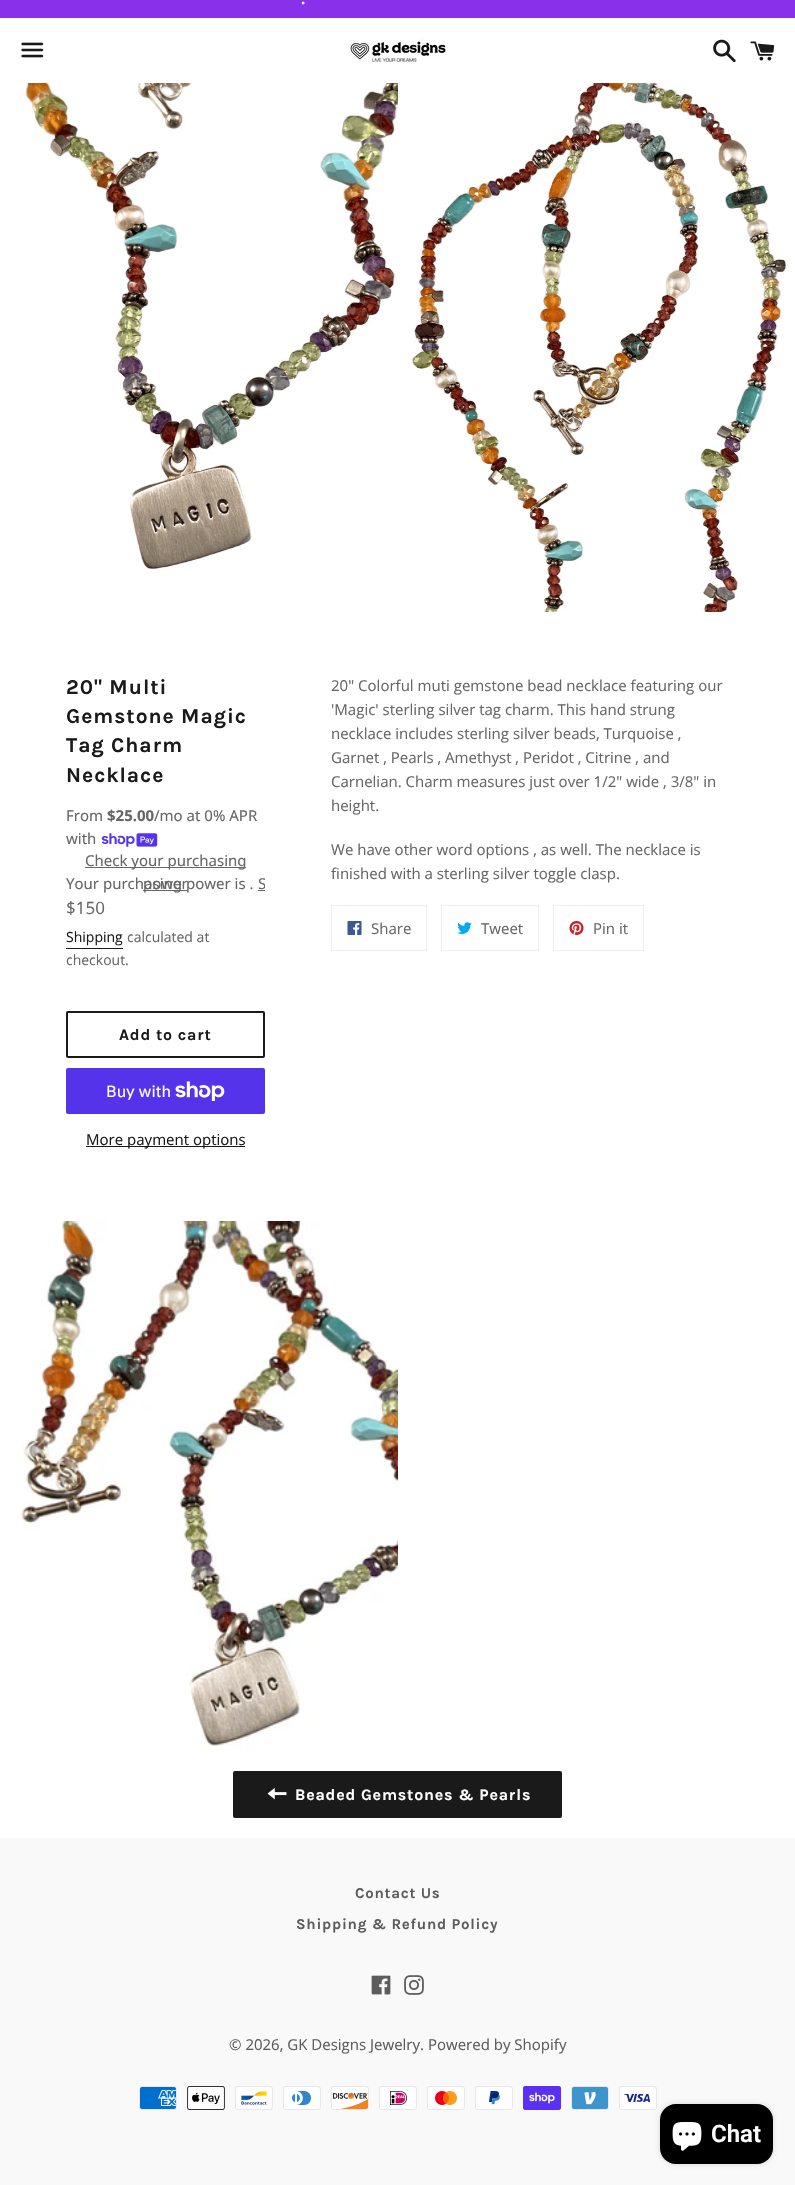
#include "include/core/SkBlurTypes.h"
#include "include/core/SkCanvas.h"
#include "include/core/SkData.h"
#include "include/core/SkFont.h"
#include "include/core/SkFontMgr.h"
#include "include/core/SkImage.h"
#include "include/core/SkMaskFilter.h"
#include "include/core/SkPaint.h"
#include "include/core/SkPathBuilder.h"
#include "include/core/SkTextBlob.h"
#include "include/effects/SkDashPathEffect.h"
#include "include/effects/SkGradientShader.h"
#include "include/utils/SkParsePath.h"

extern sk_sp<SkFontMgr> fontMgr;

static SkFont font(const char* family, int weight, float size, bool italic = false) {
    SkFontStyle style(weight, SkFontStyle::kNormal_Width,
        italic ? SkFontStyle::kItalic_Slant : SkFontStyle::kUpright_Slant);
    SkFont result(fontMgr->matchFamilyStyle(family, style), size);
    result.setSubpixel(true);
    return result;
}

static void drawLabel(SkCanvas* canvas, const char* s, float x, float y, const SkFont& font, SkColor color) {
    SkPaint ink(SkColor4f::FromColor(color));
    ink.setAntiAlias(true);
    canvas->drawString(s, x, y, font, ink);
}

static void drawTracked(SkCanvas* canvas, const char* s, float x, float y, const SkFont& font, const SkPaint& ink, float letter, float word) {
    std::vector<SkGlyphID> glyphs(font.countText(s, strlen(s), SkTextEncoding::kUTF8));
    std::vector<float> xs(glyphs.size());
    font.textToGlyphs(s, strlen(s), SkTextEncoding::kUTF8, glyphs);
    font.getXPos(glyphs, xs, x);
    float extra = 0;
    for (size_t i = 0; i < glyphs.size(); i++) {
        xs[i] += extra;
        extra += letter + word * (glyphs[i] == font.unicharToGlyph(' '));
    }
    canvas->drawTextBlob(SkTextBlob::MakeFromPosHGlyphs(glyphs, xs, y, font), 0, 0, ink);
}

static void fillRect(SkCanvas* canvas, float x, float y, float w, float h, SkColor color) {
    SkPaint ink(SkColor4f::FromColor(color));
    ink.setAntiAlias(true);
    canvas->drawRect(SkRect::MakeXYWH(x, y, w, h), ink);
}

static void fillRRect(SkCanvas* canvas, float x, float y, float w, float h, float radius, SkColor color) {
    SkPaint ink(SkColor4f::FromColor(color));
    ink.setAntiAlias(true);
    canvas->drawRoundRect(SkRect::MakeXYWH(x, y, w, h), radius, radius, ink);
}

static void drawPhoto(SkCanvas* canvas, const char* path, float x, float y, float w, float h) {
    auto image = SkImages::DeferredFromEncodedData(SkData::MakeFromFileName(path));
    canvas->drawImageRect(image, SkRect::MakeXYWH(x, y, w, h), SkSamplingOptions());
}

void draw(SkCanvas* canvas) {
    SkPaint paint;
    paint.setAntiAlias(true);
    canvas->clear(0xFFFFFFFF);
    fillRect(canvas, 0, 0, 795, 18, 0xFF8930EA);
    SkFont font1 = font("Open Sans", 700, 15);
    drawLabel(canvas, ".", 301, 4, font1, 0xFFFFFFFF);
    drawPhoto(canvas, "assets/img1.png", 21, 42, 23, 16);
    drawPhoto(canvas, "assets/img2.png", 347, 38, 99, 24);
    drawPhoto(canvas, "assets/img3.png", 713, 39, 23, 24);
    drawPhoto(canvas, "assets/img4.png", 750, 41, 25, 20);
    drawPhoto(canvas, "assets/img5.png", 25, 83, 373, 486);
    drawPhoto(canvas, "assets/img6.png", 411, 83, 376, 529);
    SkFont font2 = font("Karla", 700, 21);
    paint.setColor(0xFF1A1A1A);
    drawTracked(canvas, "20\" Multi", 66, 694, font2, paint, 1, 0);
    drawTracked(canvas, "Gemstone Magic", 66, 723, font2, paint, 1, 0);
    drawTracked(canvas, "Tag Charm", 66, 752, font2, paint, 1, 0);
    drawTracked(canvas, "Necklace", 66, 782, font2, paint, 1, 0);
    SkFont font3 = font("Noto Sans", 400, 15);
    drawLabel(canvas, "From", 66, 821, font3, 0xFF666666);
    SkFont font4 = font("Noto Sans", 700, 15);
    drawLabel(canvas, "$25.00", 107, 821, font4, 0xFF666666);
    drawLabel(canvas, "/mo at 0% APR", 154, 821, font3, 0xFF666666);
    drawLabel(canvas, "with", 66, 844, font3, 0xFF666666);
    drawPhoto(canvas, "assets/img7.png", 101, 833, 57, 14);
    fillRect(canvas, 85, 867, 161, 1, 0xFF666666);
    drawLabel(canvas, "Check your purchasing", 85, 866, font3, 0xFF666666);
    fillRect(canvas, 143, 890, 45, 1, 0xFF666666);
    drawLabel(canvas, "power", 143, 889, font3, 0xFF666666);
    drawLabel(canvas, "Your purchasing power is .", 66, 889, font3, 0xFF666666);
    canvas->save();
    canvas->clipRect(SkRect::MakeXYWH(66, 849, 199, 45));
    drawLabel(canvas, "S", 258, 889, font3, 0xFF666666);
    canvas->restore();
    fillRect(canvas, 258, 890, 7, 1, 0xFF666666);
    SkFont font5 = font("Open Sans", 400, 17);
    drawLabel(canvas, "$150", 66, 914, font5, 0xFF666666);
    SkFont font6 = font("Open Sans", 400, 14);
    drawLabel(canvas, "Shipping", 66, 942, font6, 0xFF1A1A1A);
    fillRect(canvas, 66, 948, 57, 1, 0xFF1A1A1A);
    drawLabel(canvas, "calculated at", 127, 942, font6, 0xFF666666);
    drawLabel(canvas, "checkout.", 66, 965, font6, 0xFF666666);
    paint.setStroke(true);
    paint.setStrokeWidth(2);
    canvas->drawRoundRect(SkRect::MakeXYWH(67, 1012, 197, 45), 1, 1, paint);
    SkFont font7 = font("Karla", 700, 16);
    paint.setStroke(false);
    drawTracked(canvas, "Add to cart", 119, 1040, font7, paint, 0.8f, 0);
    fillRRect(canvas, 66, 1068, 199, 46, 2, 0xFF5433EB);
    SkFont font8 = font("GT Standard", 400, 16);
    drawLabel(canvas, "Buy with", 106, 1097, font8, 0xFFFFFFFF);
    drawPhoto(canvas, "assets/img8.png", 175, 1081, 50, 20);
    fillRect(canvas, 86, 1146, 159, 1, 0xFF1A1A1A);
    SkFont font9 = font("Open Sans", 400, 15);
    drawLabel(canvas, "More payment options", 86, 1145, font9, 0xFF1A1A1A);
    drawLabel(canvas, "20\" Colorful muti gemstone bead necklace featuring our", 331, 691, font9, 0xFF666666);
    drawLabel(canvas, "'Magic' sterling silver tag charm. This hand strung", 331, 715, font9, 0xFF666666);
    drawLabel(canvas, "necklace includes sterling silver beads, Turquoise ,", 331, 739, font9, 0xFF666666);
    drawLabel(canvas, "Garnet , Pearls , Amethyst , Peridot , Citrine , and", 331, 763, font9, 0xFF666666);
    drawLabel(canvas, "Carnelian. Charm measures just over 1/2\" wide , 3/8\" in", 331, 787, font9, 0xFF666666);
    drawLabel(canvas, "height.", 331, 811, font9, 0xFF666666);
    drawLabel(canvas, "We have other word options , as well. The necklace is", 331, 855, font9, 0xFF666666);
    drawLabel(canvas, "finished with a sterling silver toggle clasp.", 331, 879, font9, 0xFF666666);
    paint.setStroke(true);
    paint.setStrokeWidth(1);
    paint.setColor(0xFFEEEEEE);
    canvas->drawRect(SkRect::MakeXYWH(331.5f, 905.5f, 95, 45), paint);
    drawPhoto(canvas, "assets/img9.png", 347, 921, 15, 14);
    drawLabel(canvas, "Share", 371, 934, font9, 0xFF666666);
    canvas->drawRect(SkRect::MakeXYWH(441.5f, 905.5f, 97, 45), paint);
    drawPhoto(canvas, "assets/img10.png", 457, 922, 15, 12);
    drawLabel(canvas, "Tweet", 481, 934, font9, 0xFF666666);
    canvas->drawRect(SkRect::MakeXYWH(553.5f, 905.5f, 90, 45), paint);
    drawPhoto(canvas, "assets/img11.png", 569, 921, 15, 14);
    drawLabel(canvas, "Pin it", 593, 934, font9, 0xFF666666);
    drawPhoto(canvas, "assets/img12.png", 21, 1221, 377, 530);
    fillRRect(canvas, 233, 1771, 329, 47, 2, 0xFF1A1A1A);
    drawPhoto(canvas, "assets/img13.png", 267, 1787, 20, 13);
    paint.setStroke(false);
    paint.setColor(0xFFFFFFFF);
    drawTracked(canvas, "Beaded Gemstones & Pearls", 295, 1800, font7, paint, 0.8f, 0);
    fillRect(canvas, 0, 1838, 795, 347, 0xFFF9F9F9);
    SkFont font10 = font("Karla", 700, 15);
    paint.setColor(0xFF5C5C5C);
    drawTracked(canvas, "Contact Us", 355, 1898, font10, paint, 0.75f, 0);
    drawTracked(canvas, "Shipping & Refund Policy", 296, 1929, font10, paint, 0.75f, 0);
    drawPhoto(canvas, "assets/img14.png", 371, 1975, 20, 20);
    drawPhoto(canvas, "assets/img15.png", 404, 1975, 20, 20);
    drawLabel(canvas, "© 2026, GK Designs Jewelry. Powered by Shopify", 229, 2050, font9, 0xFF5C5C5C);
    drawPhoto(canvas, "assets/img16.png", 139, 2086, 38, 24);
    drawPhoto(canvas, "assets/img17.png", 187, 2086, 38, 24);
    drawPhoto(canvas, "assets/img18.png", 235, 2086, 38, 24);
    drawPhoto(canvas, "assets/img19.png", 283, 2086, 38, 24);
    drawPhoto(canvas, "assets/img20.png", 331, 2086, 38, 24);
    drawPhoto(canvas, "assets/img21.png", 379, 2086, 38, 24);
    drawPhoto(canvas, "assets/img22.png", 427, 2086, 38, 24);
    drawPhoto(canvas, "assets/img23.png", 475, 2086, 38, 24);
    drawPhoto(canvas, "assets/img24.png", 523, 2086, 38, 24);
    drawPhoto(canvas, "assets/img25.png", 571, 2086, 38, 24);
    drawPhoto(canvas, "assets/img26.png", 619, 2086, 38, 24);
    paint.setColor(0x26000000);
    paint.setMaskFilter(SkMaskFilter::MakeBlur(kNormal_SkBlurStyle, 2.5f));
    canvas->drawRoundRect(SkRect::MakeXYWH(660, 2104, 113, 60), 16, 16, paint);
    paint.setMaskFilter(nullptr);
    fillRRect(canvas, 660, 2104, 113, 60, 16, 0xFF000000);
    drawPhoto(canvas, "assets/img27.png", 672, 2122, 30, 29);
    SkFont font11 = font("Roboto", 600, 24);
    drawLabel(canvas, "Chat", 711, 2142, font11, 0xFFFFFFFF);
}
